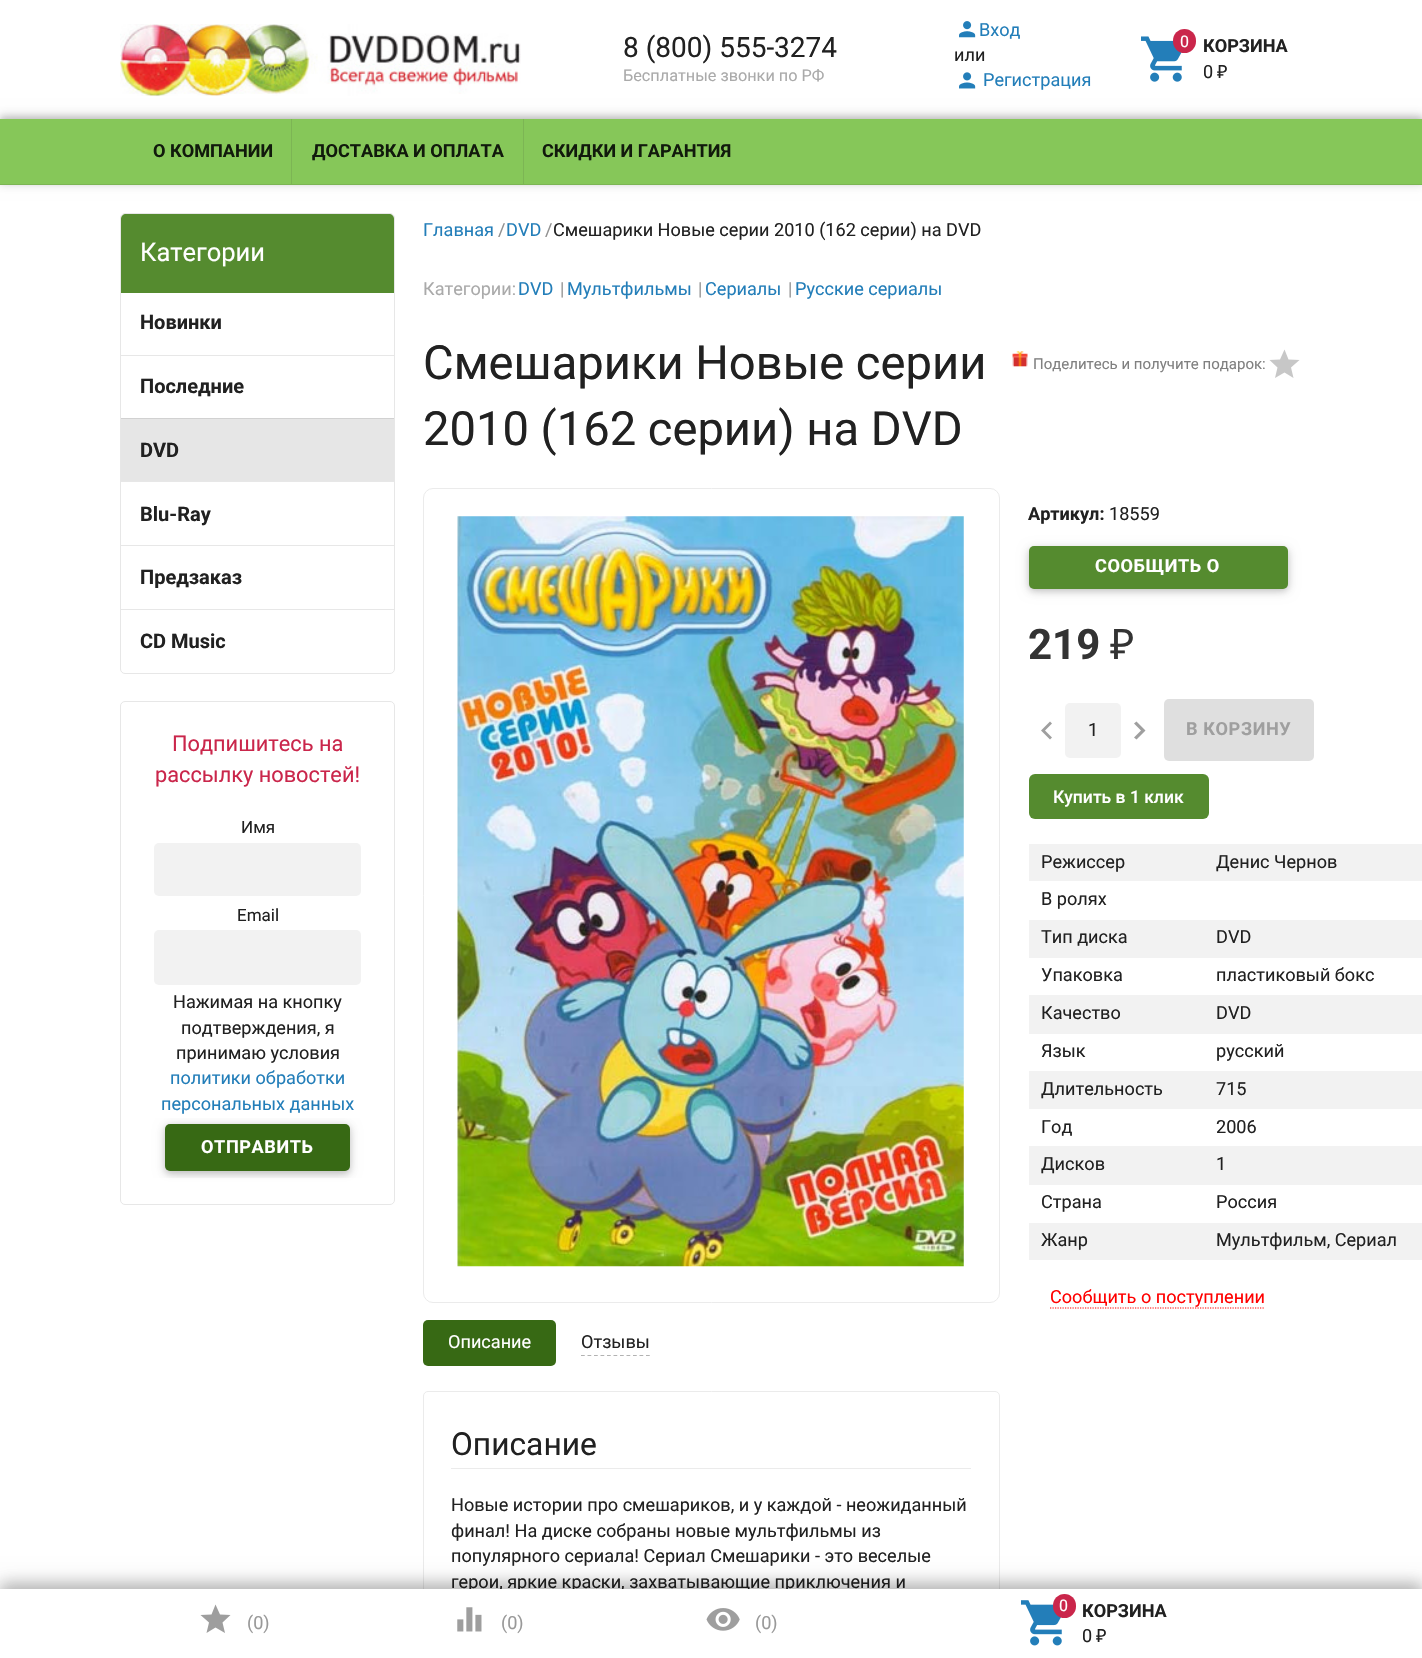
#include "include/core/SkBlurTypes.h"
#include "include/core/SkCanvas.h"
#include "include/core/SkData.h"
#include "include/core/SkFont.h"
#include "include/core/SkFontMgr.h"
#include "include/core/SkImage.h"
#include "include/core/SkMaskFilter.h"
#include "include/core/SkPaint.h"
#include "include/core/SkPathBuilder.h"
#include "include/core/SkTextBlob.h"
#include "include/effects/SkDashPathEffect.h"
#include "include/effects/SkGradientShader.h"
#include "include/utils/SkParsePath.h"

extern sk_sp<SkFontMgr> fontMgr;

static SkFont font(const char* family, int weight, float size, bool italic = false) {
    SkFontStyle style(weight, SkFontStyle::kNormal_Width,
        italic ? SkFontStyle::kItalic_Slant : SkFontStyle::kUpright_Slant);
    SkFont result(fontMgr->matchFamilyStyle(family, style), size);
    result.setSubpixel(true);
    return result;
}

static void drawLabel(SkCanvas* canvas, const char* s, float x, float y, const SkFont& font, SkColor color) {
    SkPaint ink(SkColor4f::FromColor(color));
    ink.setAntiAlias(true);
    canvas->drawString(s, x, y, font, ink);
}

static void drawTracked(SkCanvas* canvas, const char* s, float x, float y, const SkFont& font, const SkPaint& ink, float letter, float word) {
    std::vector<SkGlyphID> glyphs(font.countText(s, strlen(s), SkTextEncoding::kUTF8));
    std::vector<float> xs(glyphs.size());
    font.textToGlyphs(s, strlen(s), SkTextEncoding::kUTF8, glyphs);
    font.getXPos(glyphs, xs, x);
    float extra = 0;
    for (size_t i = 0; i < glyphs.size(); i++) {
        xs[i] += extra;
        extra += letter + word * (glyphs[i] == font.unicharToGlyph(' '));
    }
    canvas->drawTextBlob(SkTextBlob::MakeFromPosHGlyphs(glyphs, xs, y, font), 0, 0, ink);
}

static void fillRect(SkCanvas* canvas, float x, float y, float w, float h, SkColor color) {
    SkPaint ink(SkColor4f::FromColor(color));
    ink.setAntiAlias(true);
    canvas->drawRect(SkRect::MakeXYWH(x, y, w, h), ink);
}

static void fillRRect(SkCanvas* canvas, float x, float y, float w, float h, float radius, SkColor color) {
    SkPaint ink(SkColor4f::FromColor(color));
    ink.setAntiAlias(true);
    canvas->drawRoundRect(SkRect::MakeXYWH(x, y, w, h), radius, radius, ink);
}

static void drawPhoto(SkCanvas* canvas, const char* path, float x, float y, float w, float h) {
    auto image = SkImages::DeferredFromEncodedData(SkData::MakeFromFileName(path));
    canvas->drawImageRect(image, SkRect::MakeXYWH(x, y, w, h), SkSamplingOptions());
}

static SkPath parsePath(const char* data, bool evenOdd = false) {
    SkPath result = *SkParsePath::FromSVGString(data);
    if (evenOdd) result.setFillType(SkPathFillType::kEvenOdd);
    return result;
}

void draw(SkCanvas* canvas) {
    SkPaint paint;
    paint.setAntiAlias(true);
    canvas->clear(0xFFFFFFFF);
    drawPhoto(canvas, "assets/img1.png", 120, 24, 401, 73);
    SkFont font1 = font("Roboto", 400, 28);
    drawLabel(canvas, "8 (800) 555-3274", 623, 57, font1, 0xFF212121);
    SkFont font2 = font("Roboto", 400, 16.25f);
    drawLabel(canvas, "Бесплатные звонки по РФ", 623, 81, font2, 0xFFAAAAAA);
    drawPhoto(canvas, "assets/img2.png", 959, 21, 17, 17);
    SkFont font3 = font("Roboto", 400, 18.1f);
    drawLabel(canvas, "Вход", 979, 36, font3, 0xFF237EB9);
    drawLabel(canvas, "или", 954, 61, font3, 0xFF212121);
    drawPhoto(canvas, "assets/img3.png", 959, 72, 17, 17);
    drawLabel(canvas, "Регистрация", 983, 86, font3, 0xFF237EB9);
    drawPhoto(canvas, "assets/img4.png", 1141, 36, 41, 46);
    fillRRect(canvas, 1173, 29, 23, 24, 11.5f, 0xFFCA264B);
    SkFont font4 = font("Roboto", 400, 16);
    drawLabel(canvas, "0", 1180, 47, font4, 0xFFFFFFFF);
    SkFont font5 = font("Roboto", 700, 18.1f);
    drawLabel(canvas, "КОРЗИНА", 1203, 52, font5, 0xFF212121);
    drawLabel(canvas, "0", 1203, 78, font3, 0xFF212121);
    SkFont font6 = font("Noto Sans", 400, 18.1f);
    drawLabel(canvas, "₽", 1217, 78, font6, 0xFF212121);
    paint.setColor(0x1F000000);
    paint.setMaskFilter(SkMaskFilter::MakeBlur(kNormal_SkBlurStyle, 6));
    canvas->drawRect(SkRect::MakeXYWH(0, 116, 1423, 67), paint);
    paint.setMaskFilter(nullptr);
    paint.setColor(0x29000000);
    paint.setMaskFilter(SkMaskFilter::MakeBlur(kNormal_SkBlurStyle, 3));
    canvas->drawRect(SkRect::MakeXYWH(0, 116, 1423, 67), paint);
    paint.setMaskFilter(nullptr);
    fillRect(canvas, 0, 119, 1422, 65, 0xFF86C759);
    fillRect(canvas, 0, 184, 1422, 1, 0xFF7CB554);
    drawLabel(canvas, "О КОМПАНИИ", 153, 157, font5, 0xFF111A0C);
    fillRect(canvas, 291, 119, 1, 65, 0xFF7CB554);
    drawLabel(canvas, "ДОСТАВКА И ОПЛАТА", 312, 157, font5, 0xFF111A0C);
    fillRect(canvas, 523, 119, 1, 65, 0xFF7CB554);
    drawLabel(canvas, "СКИДКИ И ГАРАНТИЯ", 542, 157, font5, 0xFF111A0C);
    paint.setStroke(true);
    paint.setStrokeWidth(1);
    paint.setColor(0xFFE7E7E7);
    canvas->drawRoundRect(SkRect::MakeXYWH(120.5f, 213.5f, 274, 460), 4.5f, 4.5f, paint);
    paint.setStroke(false);
    paint.setColor(0xFF558B2F);
    canvas->drawPath(parsePath("M126 214H389C392 214 394 216 394 219V293H121V219C121 216 123 214 126 214Z"), paint);
    SkFont font7 = font("Roboto", 400, 25.5f);
    drawLabel(canvas, "Категории", 140, 261, font7, 0xFFFFFFFF);
    SkFont font8 = font("Roboto", 700, 20);
    drawLabel(canvas, "Новинки", 140, 329, font8, 0xFF212121);
    fillRect(canvas, 121, 355, 273, 1, 0xFFE7E7E7);
    drawLabel(canvas, "Последние", 140, 393, font8, 0xFF212121);
    fillRect(canvas, 121, 419, 273, 62, 0xFFE6E6E6);
    fillRect(canvas, 121, 418, 273, 1, 0xFFD1D1D1);
    drawLabel(canvas, "DVD", 140, 457, font8, 0xFF212121);
    fillRect(canvas, 121, 481, 273, 1, 0xFFE7E7E7);
    drawLabel(canvas, "Blu-Ray", 140, 521, font8, 0xFF212121);
    fillRect(canvas, 121, 545, 273, 1, 0xFFE7E7E7);
    drawLabel(canvas, "Предзаказ", 140, 584, font8, 0xFF212121);
    fillRect(canvas, 121, 609, 273, 1, 0xFFE7E7E7);
    drawLabel(canvas, "CD Music", 140, 648, font8, 0xFF212121);
    paint.setStroke(true);
    paint.setColor(0xFFE7E7E7);
    canvas->drawRoundRect(SkRect::MakeXYWH(120.5f, 701.5f, 274, 503), 4.5f, 4.5f, paint);
    SkFont font9 = font("Roboto", 400, 21.75f);
    drawLabel(canvas, "Подпишитесь на", 172, 751, font9, 0xFFCA264B);
    drawLabel(canvas, "рассылку новостей!", 155, 782, font9, 0xFFCA264B);
    SkFont font10 = font("Roboto", 400, 17);
    drawLabel(canvas, "Имя", 241, 833, font10, 0xFF212121);
    fillRRect(canvas, 154, 843, 207, 53, 5, 0xFFF2F2F2);
    drawLabel(canvas, "Email", 237, 921, font10, 0xFF212121);
    fillRRect(canvas, 154, 930, 207, 55, 5, 0xFFF2F2F2);
    drawLabel(canvas, "Нажимая на кнопку", 173, 1008, font3, 0xFF212121);
    drawLabel(canvas, "подтверждения, я", 181, 1034, font3, 0xFF212121);
    drawLabel(canvas, "принимаю условия", 176, 1059, font3, 0xFF212121);
    drawLabel(canvas, "политики обработки", 170, 1084, font3, 0xFF237EB9);
    drawLabel(canvas, "персональных данных", 161, 1110, font3, 0xFF237EB9);
    canvas->save();
    canvas->clipRect(SkRect::MakeXYWH(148, 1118, 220, 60));
    paint.setStroke(false);
    paint.setColor(0x1F000000);
    paint.setMaskFilter(SkMaskFilter::MakeBlur(kNormal_SkBlurStyle, 6));
    canvas->drawRoundRect(SkRect::MakeXYWH(165, 1126, 185, 48), 5, 5, paint);
    paint.setMaskFilter(nullptr);
    canvas->restore();
    paint.setColor(0x29000000);
    paint.setMaskFilter(SkMaskFilter::MakeBlur(kNormal_SkBlurStyle, 3));
    canvas->drawRoundRect(SkRect::MakeXYWH(165, 1126, 185, 48), 5, 5, paint);
    paint.setMaskFilter(nullptr);
    fillRRect(canvas, 165, 1124, 185, 47, 5, 0xFF376914);
    paint.setColor(0xFFFFFFFF);
    drawTracked(canvas, "ОТПРАВИТЬ", 201, 1153, font5, paint, 0.6f, 0);
    drawLabel(canvas, "Главная", 423, 236, font3, 0xFF237EB9);
    drawLabel(canvas, "/", 498, 236, font3, 0xFF919191);
    drawLabel(canvas, "DVD", 506, 236, font3, 0xFF237EB9);
    drawLabel(canvas, "/", 545, 236, font3, 0xFF919191);
    drawLabel(canvas, "Смешарики Новые серии 2010 (162 серии) на DVD", 553, 236, font3, 0xFF212121);
    drawLabel(canvas, "Категории:", 423, 295, font3, 0xFFAAAAAA);
    drawLabel(canvas, "DVD", 518, 295, font3, 0xFF237EB9);
    drawLabel(canvas, "|", 560, 295, font3, 0xFF999999);
    drawLabel(canvas, "Мультфильмы", 567, 295, font3, 0xFF237EB9);
    drawLabel(canvas, "|", 698, 295, font3, 0xFF999999);
    drawLabel(canvas, "Сериалы", 705, 295, font3, 0xFF237EB9);
    drawLabel(canvas, "|", 788, 295, font3, 0xFF999999);
    drawLabel(canvas, "Русские сериалы", 795, 295, font3, 0xFF237EB9);
    SkFont font11 = font("Roboto", 400, 47.1f);
    drawLabel(canvas, "Смешарики Новые серии", 423, 379, font11, 0xFF212121);
    drawLabel(canvas, "2010 (162 серии) на DVD", 423, 445, font11, 0xFF212121);
    drawPhoto(canvas, "assets/img5.png", 1012, 351, 16, 16);
    SkFont font12 = font("Roboto", 400, 15);
    drawLabel(canvas, "Поделитесь и получите подарок:", 1033, 369, font12, 0xFF808080);
    paint.setColor(0xFFC7C7C7);
    canvas->drawPath(parsePath("M1284.5 372.5L1275 378L1277.5 367.5L1269.5 360L1280 359.5L1284.5 349.5L1288.5 359.5L1299.5 360L1291 367.5L1293.5 378Z"), paint);
    paint.setStroke(true);
    paint.setColor(0xFFEBEBEB);
    canvas->drawRoundRect(SkRect::MakeXYWH(423.5f, 488.5f, 576, 814), 9.5f, 9.5f, paint);
    drawPhoto(canvas, "assets/img6.png", 457, 516, 507, 751);
    drawLabel(canvas, "Артикул:", 1028, 520, font5, 0xFF212121);
    drawLabel(canvas, "18559", 1109, 520, font3, 0xFF212121);
    paint.setStroke(false);
    paint.setColor(0x1F000000);
    paint.setMaskFilter(SkMaskFilter::MakeBlur(kNormal_SkBlurStyle, 6));
    canvas->drawRoundRect(SkRect::MakeXYWH(1029, 549, 259, 42), 5, 5, paint);
    paint.setMaskFilter(nullptr);
    paint.setColor(0x29000000);
    paint.setMaskFilter(SkMaskFilter::MakeBlur(kNormal_SkBlurStyle, 3));
    canvas->drawRoundRect(SkRect::MakeXYWH(1029, 549, 259, 42), 5, 5, paint);
    paint.setMaskFilter(nullptr);
    fillRRect(canvas, 1029, 546, 259, 43, 5, 0xFF558B2F);
    paint.setColor(0xFFFFFFFF);
    drawTracked(canvas, "СООБЩИТЬ О", 1095, 572, font5, paint, 0.6f, 0);
    SkFont font13 = font("Roboto", 700, 42);
    drawLabel(canvas, "219", 1028, 659, font13, 0xFF333333);
    SkFont font14 = font("Noto Sans", 400, 42);
    drawLabel(canvas, "₽", 1110, 659, font14, 0xFF333333);
    paint.setColor(0xFF9F9F9F);
    canvas->drawPath(parsePath("M1052 723.5L1045 730.5L1052 737.5L1050 739.5L1041 730.5L1050 721.5Z"), paint);
    fillRRect(canvas, 1065, 703, 56, 55, 5, 0xFFF2F2F2);
    drawLabel(canvas, "1", 1088, 736, font3, 0xFF212121);
    canvas->drawPath(parsePath("M1136.5 721.5L1145.5 730.5L1136.5 739.5L1134 737.5L1141 730.5L1134 723.5Z"), paint);
    fillRRect(canvas, 1164, 699, 150, 62, 5, 0xFFDFDFDF);
    drawTracked(canvas, "В КОРЗИНУ", 1186, 735, font5, paint, 0.6f, 0);
    fillRRect(canvas, 1029, 774, 180, 45, 6, 0xFF558B2F);
    SkFont font15 = font("Roboto", 500, 17.5f);
    drawLabel(canvas, "Купить в 1 клик", 1053, 803, font15, 0xFFFFFFFF);
    fillRect(canvas, 1029, 844, 393, 37, 0xFFF2F2F2);
    drawLabel(canvas, "Режиссер", 1041, 868, font3, 0xFF212121);
    drawLabel(canvas, "Денис Чернов", 1216, 868, font3, 0xFF212121);
    drawLabel(canvas, "В ролях", 1041, 905, font3, 0xFF212121);
    fillRect(canvas, 1029, 920, 393, 38, 0xFFF2F2F2);
    drawLabel(canvas, "Тип диска", 1041, 943, font3, 0xFF212121);
    drawLabel(canvas, "DVD", 1216, 943, font3, 0xFF212121);
    drawLabel(canvas, "Упаковка", 1041, 981, font3, 0xFF212121);
    drawLabel(canvas, "пластиковый бокс", 1216, 981, font3, 0xFF212121);
    fillRect(canvas, 1029, 995, 393, 39, 0xFFF2F2F2);
    drawLabel(canvas, "Качество", 1041, 1019, font3, 0xFF212121);
    drawLabel(canvas, "DVD", 1216, 1019, font3, 0xFF212121);
    drawLabel(canvas, "Язык", 1041, 1057, font3, 0xFF212121);
    drawLabel(canvas, "русский", 1216, 1057, font3, 0xFF212121);
    fillRect(canvas, 1029, 1071, 393, 38, 0xFFF2F2F2);
    drawLabel(canvas, "Длительность", 1041, 1095, font3, 0xFF212121);
    drawLabel(canvas, "715", 1216, 1095, font3, 0xFF212121);
    drawLabel(canvas, "Год", 1041, 1133, font3, 0xFF212121);
    drawLabel(canvas, "2006", 1216, 1133, font3, 0xFF212121);
    fillRect(canvas, 1029, 1146, 393, 39, 0xFFF2F2F2);
    drawLabel(canvas, "Дисков", 1041, 1170, font3, 0xFF212121);
    drawLabel(canvas, "1", 1216, 1170, font3, 0xFF212121);
    drawLabel(canvas, "Страна", 1041, 1208, font3, 0xFF212121);
    drawLabel(canvas, "Россия", 1216, 1208, font3, 0xFF212121);
    fillRect(canvas, 1029, 1223, 393, 37, 0xFFF2F2F2);
    drawLabel(canvas, "Жанр", 1041, 1246, font3, 0xFF212121);
    drawLabel(canvas, "Мультфильм, Сериал", 1216, 1246, font3, 0xFF212121);
    drawLabel(canvas, "Сообщить о поступлении", 1050, 1303, font3, 0xFFFF0000);
    paint.setStroke(true);
    paint.setStrokeWidth(1.2f);
    paint.setColor(0xFFFF0000);
    paint.setPathEffect(SkDashPathEffect::Make({{1.25f, 1.25f}}, 0));
    canvas->drawPath(parsePath("M1050 1308H1265"), paint);
    paint.setPathEffect(nullptr);
    fillRRect(canvas, 423, 1320, 133, 46, 5, 0xFF376914);
    drawLabel(canvas, "Описание", 448, 1348, font3, 0xFFFFFFFF);
    drawLabel(canvas, "Отзывы", 581, 1348, font3, 0xFF212121);
    paint.setColor(0xFFB2B2B2);
    paint.setPathEffect(SkDashPathEffect::Make({{3.75f, 2.75f}}, 0));
    canvas->drawPath(parsePath("M581 1355.5H650"), paint);
    paint.setPathEffect(nullptr);
    paint.setStrokeWidth(1);
    paint.setColor(0xFFEBEBEB);
    canvas->drawRoundRect(SkRect::MakeXYWH(423.5f, 1391.5f, 576, 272), 4.5f, 4.5f, paint);
    fillRect(canvas, 451, 1468, 520, 1, 0xFFEBEBEB);
    SkFont font16 = font("Roboto", 400, 31.75f);
    drawLabel(canvas, "Описание", 451, 1455, font16, 0xFF212121);
    drawLabel(canvas, "Новые истории про смешариков, и у каждой - неожиданный", 451, 1511, font3, 0xFF212121);
    drawLabel(canvas, "финал! На диске собраны новые мультфильмы из", 451, 1537, font3, 0xFF212121);
    drawLabel(canvas, "популярного сериала! Сериал Смешарики - это веселые", 451, 1562, font3, 0xFF212121);
    drawLabel(canvas, "герои, яркие краски, захватывающие приключения и", 451, 1588, font3, 0xFF212121);
    paint.setStroke(false);
    paint.setColor(0x26000000);
    paint.setMaskFilter(SkMaskFilter::MakeBlur(kNormal_SkBlurStyle, 9.5f));
    canvas->drawRect(SkRect::MakeXYWH(0, 1584, 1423, 70), paint);
    paint.setMaskFilter(nullptr);
    paint.setColor(0x2E000000);
    paint.setMaskFilter(SkMaskFilter::MakeBlur(kNormal_SkBlurStyle, 7));
    canvas->drawRect(SkRect::MakeXYWH(0, 1583, 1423, 70), paint);
    paint.setMaskFilter(nullptr);
    fillRect(canvas, 0, 1589, 1422, 69, 0xFFFFFFFF);
    paint.setColor(0xFF9E9E9E);
    canvas->drawPath(parsePath("M215.5 1627.5L206.5 1633L209 1622.5L200.5 1615L211.5 1614.5L215.5 1604.5L220 1614.5L230.5 1615L222.5 1622.5L225 1633Z"), paint);
    drawLabel(canvas, "(0)", 247, 1629, font3, 0xFF999999);
    drawPhoto(canvas, "assets/img7.png", 457, 1607, 25, 25);
    drawLabel(canvas, "(0)", 501, 1629, font3, 0xFF999999);
    drawPhoto(canvas, "assets/img8.png", 706, 1608, 34, 23);
    drawLabel(canvas, "(0)", 755, 1629, font3, 0xFF999999);
    drawPhoto(canvas, "assets/img9.png", 1021, 1600, 41, 46);
    fillRRect(canvas, 1053, 1594, 23, 24, 11.5f, 0xFFCA264B);
    drawLabel(canvas, "0", 1059, 1611, font4, 0xFFFFFFFF);
    drawLabel(canvas, "КОРЗИНА", 1082, 1617, font5, 0xFF212121);
    drawLabel(canvas, "0", 1082, 1642, font3, 0xFF212121);
    drawLabel(canvas, "₽", 1096, 1642, font6, 0xFF212121);
}
